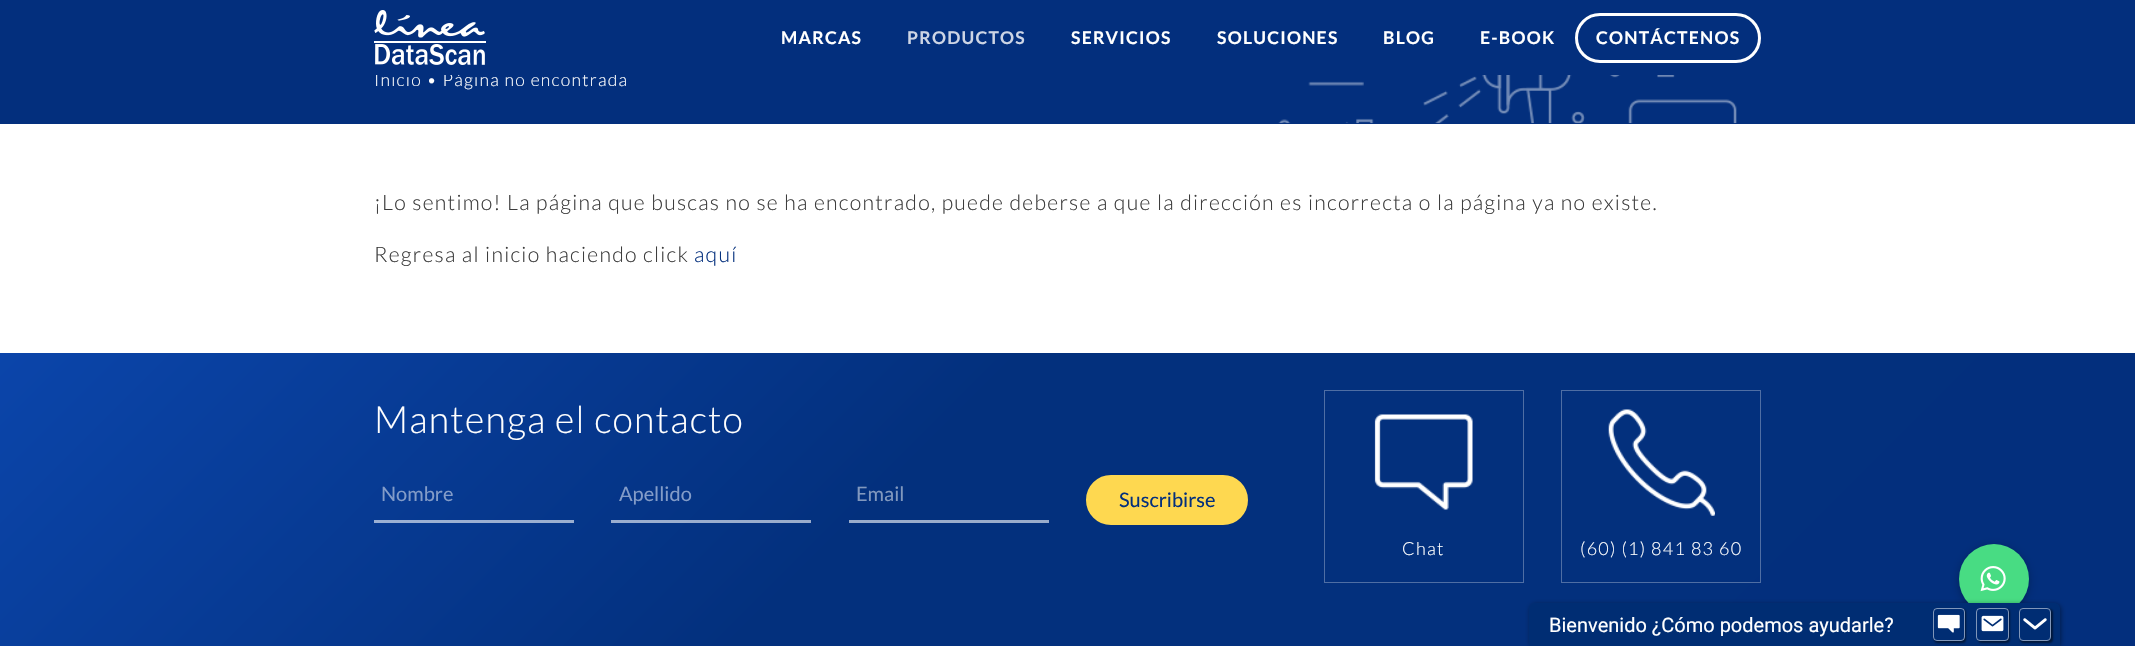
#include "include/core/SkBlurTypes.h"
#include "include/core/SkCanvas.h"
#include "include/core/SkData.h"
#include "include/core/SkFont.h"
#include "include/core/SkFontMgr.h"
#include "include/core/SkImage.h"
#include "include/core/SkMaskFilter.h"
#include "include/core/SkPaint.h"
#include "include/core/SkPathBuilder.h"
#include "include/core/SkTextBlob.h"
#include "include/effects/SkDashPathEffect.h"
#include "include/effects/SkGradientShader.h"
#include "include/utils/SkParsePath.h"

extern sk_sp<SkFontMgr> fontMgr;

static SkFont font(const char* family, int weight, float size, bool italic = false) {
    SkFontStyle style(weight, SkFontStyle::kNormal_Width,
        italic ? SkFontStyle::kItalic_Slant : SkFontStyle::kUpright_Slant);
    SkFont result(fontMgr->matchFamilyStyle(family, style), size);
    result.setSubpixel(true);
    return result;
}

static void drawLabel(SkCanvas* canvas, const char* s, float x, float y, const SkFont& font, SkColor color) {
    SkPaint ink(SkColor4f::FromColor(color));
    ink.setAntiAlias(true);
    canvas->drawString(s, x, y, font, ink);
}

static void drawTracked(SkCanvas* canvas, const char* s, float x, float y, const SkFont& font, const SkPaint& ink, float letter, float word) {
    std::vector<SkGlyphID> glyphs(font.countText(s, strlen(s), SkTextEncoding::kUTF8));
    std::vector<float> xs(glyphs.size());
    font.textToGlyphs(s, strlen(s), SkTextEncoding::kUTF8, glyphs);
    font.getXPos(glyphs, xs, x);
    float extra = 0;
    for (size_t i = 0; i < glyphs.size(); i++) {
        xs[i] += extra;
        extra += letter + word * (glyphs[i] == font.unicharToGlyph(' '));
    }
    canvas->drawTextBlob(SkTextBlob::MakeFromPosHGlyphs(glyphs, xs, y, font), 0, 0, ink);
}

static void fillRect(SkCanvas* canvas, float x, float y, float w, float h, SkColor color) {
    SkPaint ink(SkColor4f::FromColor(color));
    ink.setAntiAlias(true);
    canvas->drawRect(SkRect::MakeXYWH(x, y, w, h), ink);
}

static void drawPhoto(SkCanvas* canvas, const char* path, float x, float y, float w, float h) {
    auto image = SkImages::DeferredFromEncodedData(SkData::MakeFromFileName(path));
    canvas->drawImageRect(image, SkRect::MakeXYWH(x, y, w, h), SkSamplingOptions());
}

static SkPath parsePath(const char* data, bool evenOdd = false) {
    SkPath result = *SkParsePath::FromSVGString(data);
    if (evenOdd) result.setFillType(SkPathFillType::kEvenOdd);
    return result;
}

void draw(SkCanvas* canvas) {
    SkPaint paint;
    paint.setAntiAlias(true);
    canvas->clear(0xFFFFFFFF);
    fillRect(canvas, 0, 75, 2135, 49, 0xFF032F7D);
    SkFont font1 = font("Lato", 300, 17.5f);
    paint.setColor(0xFFFFFFFF);
    drawTracked(canvas, "Inicio • Página no encontrada", 374, 86, font1, paint, 1.25f, 0);
    fillRect(canvas, 0, 0, 2135, 75, 0xFF032F7D);
    drawPhoto(canvas, "assets/img1.png", 374, 10, 112, 55);
    SkFont font2 = font("Lato", 700, 17.5f);
    drawTracked(canvas, "MARCAS", 781, 44, font2, paint, 1.25f, 0);
    paint.setColor(0xFFCDD5E5);
    drawTracked(canvas, "PRODUCTOS", 907, 44, font2, paint, 1.25f, 0);
    paint.setColor(0xFFFFFFFF);
    drawTracked(canvas, "SERVICIOS", 1071, 44, font2, paint, 1.25f, 0);
    drawTracked(canvas, "SOLUCIONES", 1217, 44, font2, paint, 1.25f, 0);
    drawTracked(canvas, "BLOG", 1383, 44, font2, paint, 1.25f, 0);
    drawTracked(canvas, "E-BOOK", 1480, 44, font2, paint, 1.25f, 0);
    paint.setStroke(true);
    paint.setStrokeWidth(3);
    canvas->drawRoundRect(SkRect::MakeXYWH(1576.5f, 14.5f, 183, 47), 23.5f, 23.5f, paint);
    paint.setStroke(false);
    drawTracked(canvas, "CONTÁCTENOS", 1596, 44, font2, paint, 1.25f, 0);
    drawPhoto(canvas, "assets/img2.png", 1278, 75, 459, 49);
    SkFont font3 = font("Lato", 300, 21.25f);
    paint.setColor(0xFF3C3C3C);
    drawTracked(canvas, "¡Lo sentimo! La página que buscas no se ha encontrado, puede deberse a que la dirección es incorrecta o la página ya no existe.", 374, 210, font3, paint, 1.25f, 0);
    drawTracked(canvas, "Regresa al inicio haciendo click", 374, 262, font3, paint, 1.25f, 0);
    paint.setColor(0xFF032F7D);
    drawTracked(canvas, "aquí", 694, 262, font3, paint, 1.25f, 0);
    {
        const SkColor colors[] = {0xFF0B45AA, 0xFF03307D, 0xFF032F7D};
        const float stops[] = {0, 0.35f, 1};
        const SkPoint ends[] = {{333, 19}, {1802, 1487}};
        paint.setShader(SkGradientShader::MakeLinear(ends, colors, stops, 3, SkTileMode::kClamp));
        paint.setAlpha(255);
    }
    canvas->drawRect(SkRect::MakeXYWH(0, 353, 2135, 293), paint);
    {
        const SkColor colors[] = {0xFF9DB5DD, 0xFF9AACCB, 0xFF9AACCB};
        const float stops[] = {0, 0.35f, 1};
        const SkPoint ends[] = {{333, 19}, {1802, 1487}};
        paint.setShader(SkGradientShader::MakeLinear(ends, colors, stops, 3, SkTileMode::kClamp));
        paint.setAlpha(255);
    }
    canvas->drawRect(SkRect::MakeXYWH(611, 520, 200, 3), paint);
    canvas->drawRect(SkRect::MakeXYWH(374, 520, 200, 3), paint);
    SkFont font4 = font("Lato", 300, 37.5f);
    paint.setShader(nullptr);
    paint.setColor(0xFFFFFFFF);
    drawTracked(canvas, "Mantenga el contacto", 374, 433, font4, paint, 1.25f, 0);
    SkFont font5 = font("Lato", 400, 20);
    drawLabel(canvas, "Nombre", 381, 501, font5, 0xFF839CC8);
    drawLabel(canvas, "Apellido", 619, 501, font5, 0xFF839CC8);
    fillRect(canvas, 849, 520, 200, 3, 0xFF9AACCB);
    drawLabel(canvas, "Email", 856, 501, font5, 0xFF8198BE);
    paint.setColor(0xFFFED850);
    canvas->drawRoundRect(SkRect::MakeXYWH(1087.5f, 476.5f, 159, 47), 23.5f, 23.5f, paint);
    paint.setStroke(true);
    canvas->drawRoundRect(SkRect::MakeXYWH(1087.5f, 476.5f, 159, 47), 23.5f, 23.5f, paint);
    drawLabel(canvas, "Suscribirse", 1119, 507, font5, 0xFF032F7D);
    paint.setStrokeWidth(1);
    paint.setColor(0xFF4F6EA4);
    canvas->drawRect(SkRect::MakeXYWH(1324.5f, 390.5f, 199, 192), paint);
    drawPhoto(canvas, "assets/img3.png", 1374, 414, 99, 96);
    SkFont font6 = font("Lato", 300, 18);
    paint.setStroke(false);
    paint.setColor(0xFFFFFFFF);
    drawTracked(canvas, "Chat", 1402, 555, font6, paint, 1.25f, 0);
    paint.setStroke(true);
    paint.setColor(0xFF4F6EA4);
    canvas->drawRect(SkRect::MakeXYWH(1561.5f, 390.5f, 199, 192), paint);
    drawPhoto(canvas, "assets/img4.png", 1608, 409, 107, 107);
    paint.setStroke(false);
    paint.setColor(0xFFFFFFFF);
    drawTracked(canvas, "(60) (1) 841 83 60", 1580, 555, font6, paint, 1.25f, 0);
    paint.setColor(0x1F000000);
    paint.setMaskFilter(SkMaskFilter::MakeBlur(kNormal_SkBlurStyle, 6));
    canvas->drawRoundRect(SkRect::MakeXYWH(1959, 546, 70, 70), 35, 35, paint);
    paint.setMaskFilter(nullptr);
    paint.setColor(0x29000000);
    paint.setMaskFilter(SkMaskFilter::MakeBlur(kNormal_SkBlurStyle, 3));
    canvas->drawRoundRect(SkRect::MakeXYWH(1959, 546, 70, 70), 35, 35, paint);
    paint.setMaskFilter(nullptr);
    paint.setColor(0xFF48DC83);
    canvas->drawCircle(1994, 579, 35, paint);
    paint.setColor(0x66000000);
    paint.setMaskFilter(SkMaskFilter::MakeBlur(kNormal_SkBlurStyle, 2.5f));
    canvas->drawRoundRect(SkRect::MakeXYWH(1530, 604, 531, 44), 6, 6, paint);
    paint.setMaskFilter(nullptr);
    paint.setColor(0xFF002D73);
    canvas->drawPath(parsePath("M1535 603H2054C2057.5 603 2060 605.5 2060 609V646H1529V609C1529 605.5 1531.5 603 1535 603Z"), paint);
    SkFont font7 = font("Roboto", 400, 20);
    drawLabel(canvas, "Bienvenido ¿Cómo podemos ayudarle?", 1549, 632, font7, 0xFFFFFFFF);
    canvas->save();
    canvas->clipPath(parsePath("M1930 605H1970V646H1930ZM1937 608H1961C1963 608 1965 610 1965 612V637C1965 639 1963 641 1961 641H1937C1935 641 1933 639 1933 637V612C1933 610 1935 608 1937 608Z", true), true);
    paint.setColor(0x80000000);
    paint.setMaskFilter(SkMaskFilter::MakeBlur(kNormal_SkBlurStyle, 1));
    canvas->drawRoundRect(SkRect::MakeXYWH(1934, 609, 32, 34), 4, 4, paint);
    paint.setMaskFilter(nullptr);
    canvas->restore();
    paint.setStroke(true);
    paint.setColor(0x80FFFFFF);
    canvas->drawRoundRect(SkRect::MakeXYWH(1933.5f, 608.5f, 31, 32), 3.5f, 3.5f, paint);
    drawPhoto(canvas, "assets/img5.png", 1937, 614, 23, 19);
    canvas->save();
    canvas->clipPath(parsePath("M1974 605H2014V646H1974ZM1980 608H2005C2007 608 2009 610 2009 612V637C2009 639 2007 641 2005 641H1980C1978 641 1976 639 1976 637V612C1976 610 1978 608 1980 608Z", true), true);
    paint.setStroke(false);
    paint.setColor(0x80000000);
    paint.setMaskFilter(SkMaskFilter::MakeBlur(kNormal_SkBlurStyle, 1));
    canvas->drawRoundRect(SkRect::MakeXYWH(1978, 609, 32, 34), 4, 4, paint);
    paint.setMaskFilter(nullptr);
    canvas->restore();
    paint.setStroke(true);
    paint.setColor(0x80FFFFFF);
    canvas->drawRoundRect(SkRect::MakeXYWH(1976.5f, 608.5f, 32, 32), 3.5f, 3.5f, paint);
    drawPhoto(canvas, "assets/img6.png", 1981, 615, 23, 17);
    canvas->save();
    canvas->clipPath(parsePath("M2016 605H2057V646H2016ZM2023 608H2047C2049 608 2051 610 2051 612V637C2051 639 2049 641 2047 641H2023C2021 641 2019 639 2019 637V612C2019 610 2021 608 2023 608Z", true), true);
    paint.setStroke(false);
    paint.setColor(0x80000000);
    paint.setMaskFilter(SkMaskFilter::MakeBlur(kNormal_SkBlurStyle, 1));
    canvas->drawRoundRect(SkRect::MakeXYWH(2020, 609, 33, 34), 4, 4, paint);
    paint.setMaskFilter(nullptr);
    canvas->restore();
    paint.setStroke(true);
    paint.setColor(0xFF8096B9);
    canvas->drawRoundRect(SkRect::MakeXYWH(2019.5f, 608.5f, 31, 32), 3.5f, 3.5f, paint);
    drawPhoto(canvas, "assets/img7.png", 2023, 618, 24, 12);
    drawPhoto(canvas, "assets/img8.png", 1980, 566, 26, 26);
}
